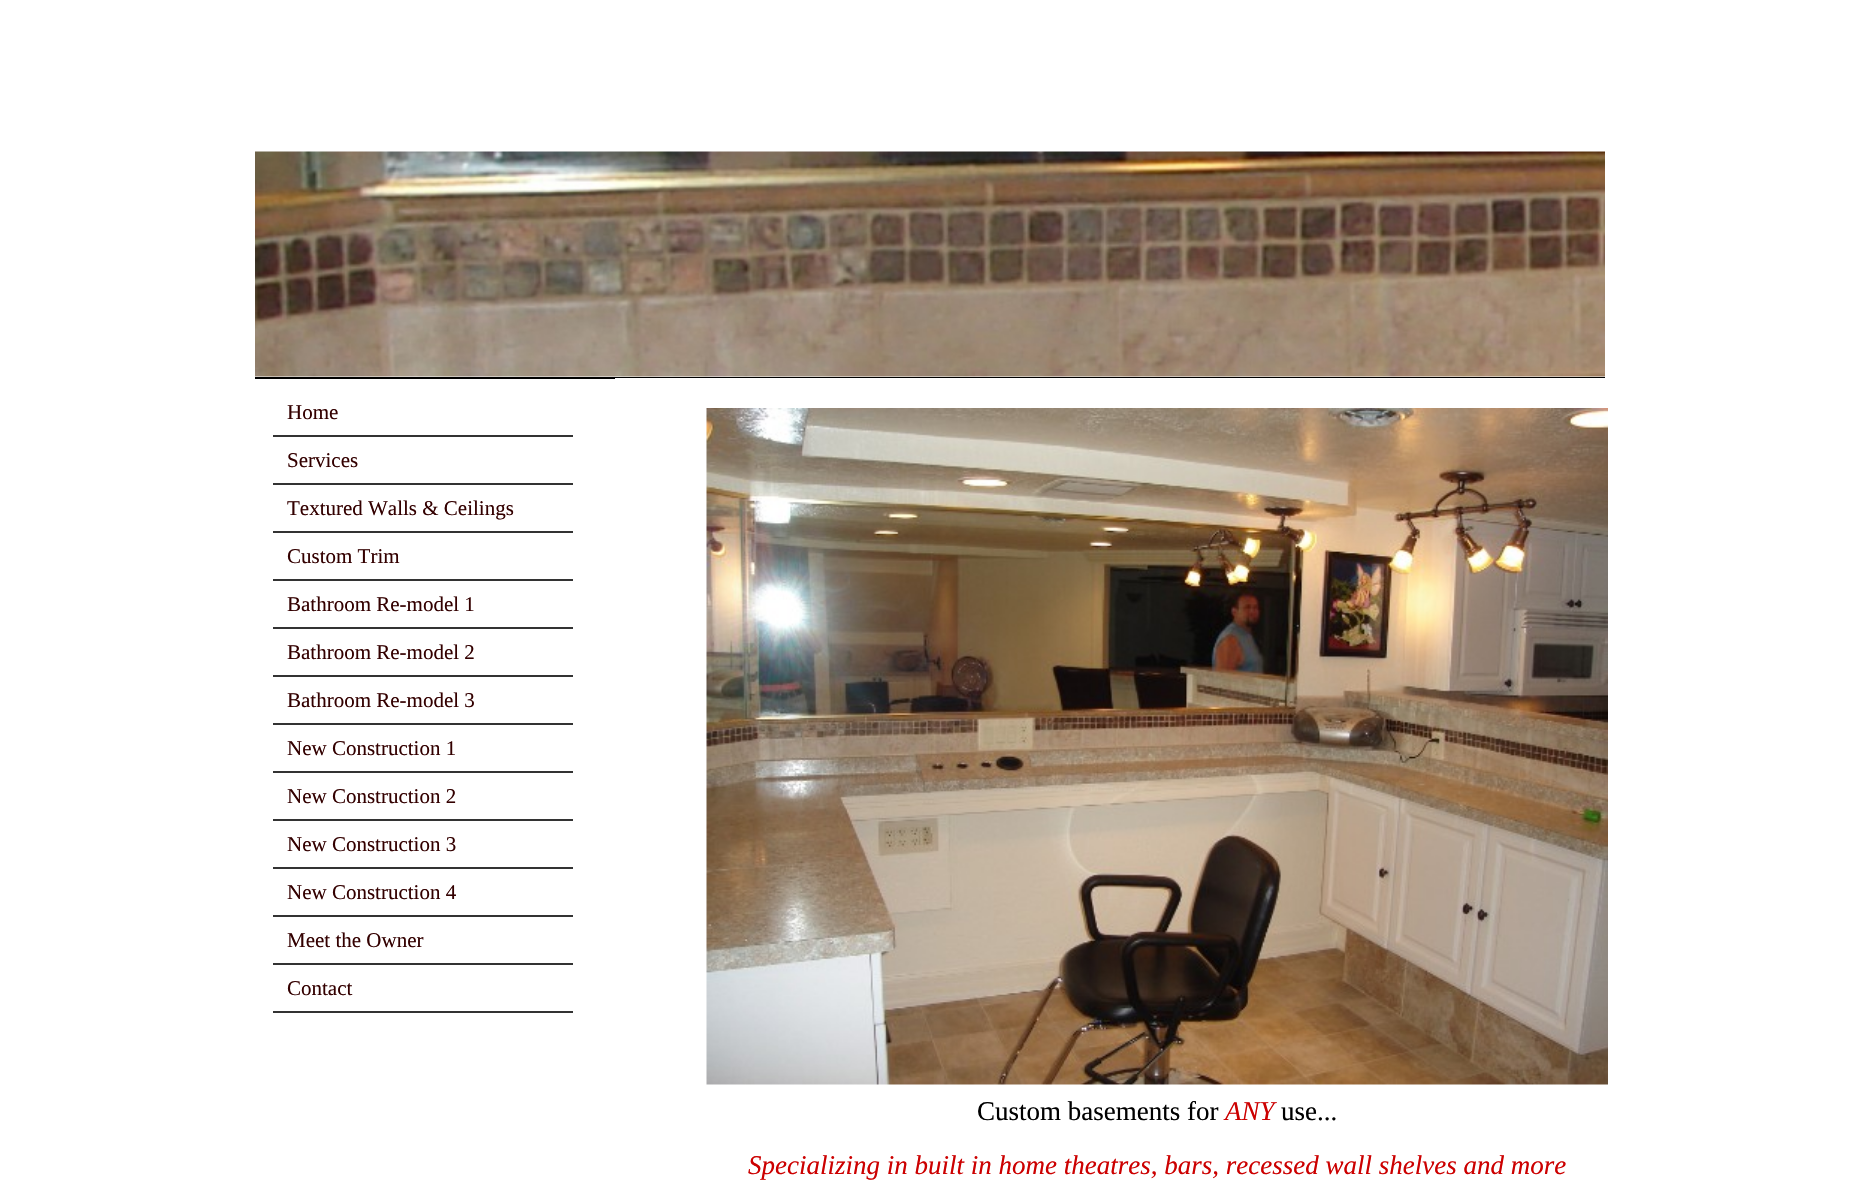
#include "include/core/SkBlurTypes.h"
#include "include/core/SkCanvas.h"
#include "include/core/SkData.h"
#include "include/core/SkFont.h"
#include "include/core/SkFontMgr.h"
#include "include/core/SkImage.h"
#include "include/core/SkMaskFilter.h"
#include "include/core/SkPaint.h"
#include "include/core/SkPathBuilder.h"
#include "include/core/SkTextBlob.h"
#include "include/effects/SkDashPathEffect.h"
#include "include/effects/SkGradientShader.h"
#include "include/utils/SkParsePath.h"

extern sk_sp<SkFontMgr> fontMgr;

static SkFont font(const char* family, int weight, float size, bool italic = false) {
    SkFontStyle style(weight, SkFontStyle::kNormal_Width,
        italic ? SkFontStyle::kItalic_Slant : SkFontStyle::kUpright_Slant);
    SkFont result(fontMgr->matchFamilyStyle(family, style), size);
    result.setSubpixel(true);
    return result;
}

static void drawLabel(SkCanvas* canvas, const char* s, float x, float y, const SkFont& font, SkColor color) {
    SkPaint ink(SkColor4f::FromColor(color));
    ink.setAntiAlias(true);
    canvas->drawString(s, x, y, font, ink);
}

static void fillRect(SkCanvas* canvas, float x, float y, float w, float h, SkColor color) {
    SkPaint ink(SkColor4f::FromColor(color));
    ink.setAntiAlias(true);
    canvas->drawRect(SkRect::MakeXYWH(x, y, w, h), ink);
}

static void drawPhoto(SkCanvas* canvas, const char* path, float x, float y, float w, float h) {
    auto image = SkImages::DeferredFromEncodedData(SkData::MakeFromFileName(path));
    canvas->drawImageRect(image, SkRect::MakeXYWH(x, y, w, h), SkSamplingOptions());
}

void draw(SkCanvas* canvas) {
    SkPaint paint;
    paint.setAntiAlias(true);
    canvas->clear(0xFFFFFFFF);
    drawPhoto(canvas, "assets/img1.png", 255, 151, 1350, 226);
    fillRect(canvas, 255, 377, 1350, 2, 0xFF000000);
    fillRect(canvas, 273, 435, 300, 2, 0xFF333333);
    SkFont font1 = font("Liberation Serif", 400, 21);
    drawLabel(canvas, "Home", 287, 419, font1, 0xFF330000);
    fillRect(canvas, 273, 483, 300, 2, 0xFF333333);
    drawLabel(canvas, "Services", 287, 467, font1, 0xFF330000);
    fillRect(canvas, 273, 531, 300, 2, 0xFF333333);
    drawLabel(canvas, "Textured Walls & Ceilings", 287, 515, font1, 0xFF330000);
    fillRect(canvas, 273, 579, 300, 2, 0xFF333333);
    drawLabel(canvas, "Custom Trim", 287, 563, font1, 0xFF330000);
    fillRect(canvas, 273, 627, 300, 2, 0xFF333333);
    drawLabel(canvas, "Bathroom Re-model 1", 287, 611, font1, 0xFF330000);
    fillRect(canvas, 273, 675, 300, 2, 0xFF333333);
    drawLabel(canvas, "Bathroom Re-model 2", 287, 659, font1, 0xFF330000);
    fillRect(canvas, 273, 723, 300, 2, 0xFF333333);
    drawLabel(canvas, "Bathroom Re-model 3", 287, 707, font1, 0xFF330000);
    fillRect(canvas, 273, 771, 300, 2, 0xFF333333);
    drawLabel(canvas, "New Construction 1", 287, 755, font1, 0xFF330000);
    fillRect(canvas, 273, 819, 300, 2, 0xFF333333);
    drawLabel(canvas, "New Construction 2", 287, 803, font1, 0xFF330000);
    fillRect(canvas, 273, 867, 300, 2, 0xFF333333);
    drawLabel(canvas, "New Construction 3", 287, 851, font1, 0xFF330000);
    fillRect(canvas, 273, 915, 300, 2, 0xFF333333);
    drawLabel(canvas, "New Construction 4", 287, 899, font1, 0xFF330000);
    fillRect(canvas, 273, 963, 300, 2, 0xFF333333);
    drawLabel(canvas, "Meet the Owner", 287, 947, font1, 0xFF330000);
    fillRect(canvas, 273, 1011, 300, 2, 0xFF333333);
    drawLabel(canvas, "Contact", 287, 995, font1, 0xFF330000);
    fillRect(canvas, 615, 378, 990, 1, 0xFFFFFFFF);
    drawPhoto(canvas, "assets/img2.png", 706, 408, 902, 677);
    SkFont font2 = font("Liberation Serif", 400, 27);
    drawLabel(canvas, "Custom basements for", 977, 1120, font2, 0xFF000000);
    SkFont font3 = font("Liberation Serif", 400, 27, true);
    drawLabel(canvas, "ANY", 1225, 1120, font3, 0xFFCC0000);
    drawLabel(canvas, "use...", 1281, 1120, font2, 0xFF000000);
    drawLabel(canvas, "Specializing in built in home theatres, bars, recessed wall shelves and more", 748, 1174, font3, 0xFFCC0000);
}
